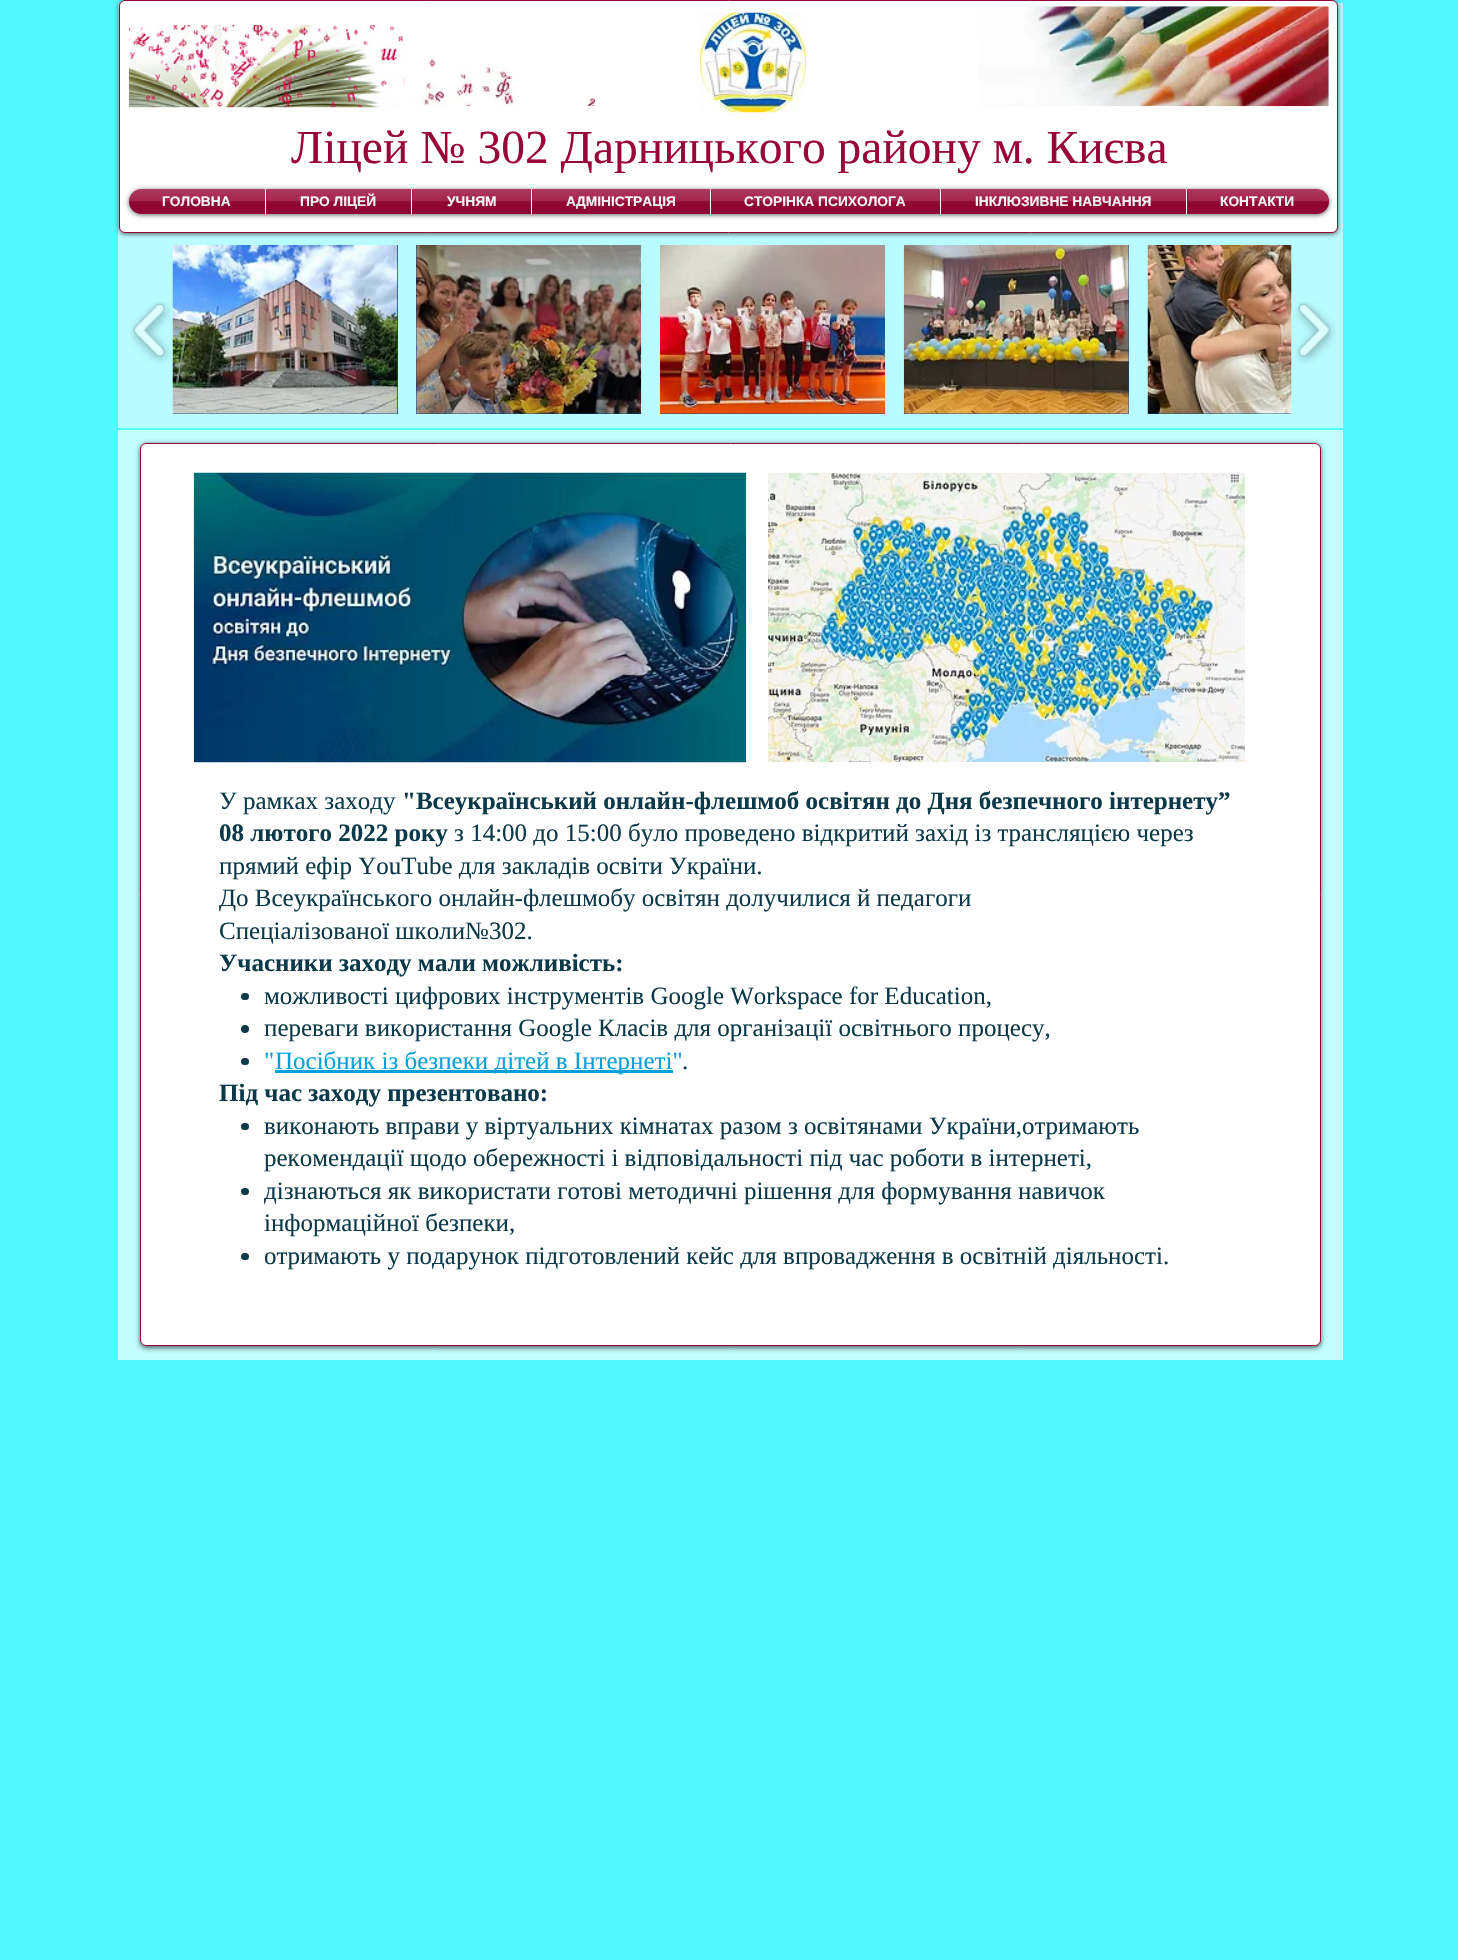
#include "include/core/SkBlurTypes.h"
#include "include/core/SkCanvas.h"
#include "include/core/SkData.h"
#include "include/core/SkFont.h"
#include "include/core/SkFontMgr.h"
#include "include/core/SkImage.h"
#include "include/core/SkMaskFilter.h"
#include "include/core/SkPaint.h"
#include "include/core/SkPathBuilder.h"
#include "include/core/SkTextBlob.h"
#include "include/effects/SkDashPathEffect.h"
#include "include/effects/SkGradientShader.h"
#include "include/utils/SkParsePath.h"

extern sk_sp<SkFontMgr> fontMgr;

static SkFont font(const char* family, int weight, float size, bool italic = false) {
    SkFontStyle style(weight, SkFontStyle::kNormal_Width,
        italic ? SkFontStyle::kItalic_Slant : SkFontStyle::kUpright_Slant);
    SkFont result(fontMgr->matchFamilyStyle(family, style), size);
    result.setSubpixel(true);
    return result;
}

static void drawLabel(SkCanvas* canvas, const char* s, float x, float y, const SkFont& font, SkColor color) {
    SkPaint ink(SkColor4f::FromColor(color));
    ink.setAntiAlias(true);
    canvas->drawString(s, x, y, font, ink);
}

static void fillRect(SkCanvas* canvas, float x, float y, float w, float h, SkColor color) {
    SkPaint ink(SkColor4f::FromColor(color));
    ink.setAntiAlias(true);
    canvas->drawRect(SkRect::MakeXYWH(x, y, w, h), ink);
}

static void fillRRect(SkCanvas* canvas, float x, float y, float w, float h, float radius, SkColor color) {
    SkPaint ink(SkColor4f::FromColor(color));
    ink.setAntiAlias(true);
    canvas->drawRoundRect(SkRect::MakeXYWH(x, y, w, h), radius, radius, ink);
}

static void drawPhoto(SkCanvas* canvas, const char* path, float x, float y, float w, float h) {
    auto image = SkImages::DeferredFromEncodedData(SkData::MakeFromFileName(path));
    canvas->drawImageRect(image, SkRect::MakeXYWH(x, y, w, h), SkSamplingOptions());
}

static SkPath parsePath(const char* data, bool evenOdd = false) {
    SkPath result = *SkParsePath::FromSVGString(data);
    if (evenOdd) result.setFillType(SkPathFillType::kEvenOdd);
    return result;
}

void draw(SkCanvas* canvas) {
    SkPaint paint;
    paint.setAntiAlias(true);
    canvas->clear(0xFF50FAFE);
    fillRect(canvas, 118, 3, 1225, 425, 0xFFB9FCFF);
    paint.setColor(0x99000000);
    paint.setMaskFilter(SkMaskFilter::MakeBlur(kNormal_SkBlurStyle, 2.5f));
    canvas->drawRoundRect(SkRect::MakeXYWH(119, 1, 1219, 233), 6, 6, paint);
    paint.setMaskFilter(nullptr);
    paint.setColor(0xFFFFFFFF);
    canvas->drawRoundRect(SkRect::MakeXYWH(119.5f, 0.5f, 1218, 232), 5.5f, 5.5f, paint);
    paint.setStroke(true);
    paint.setStrokeWidth(1);
    paint.setColor(0xFF990636);
    canvas->drawRoundRect(SkRect::MakeXYWH(119.5f, 0.5f, 1218, 232), 5.5f, 5.5f, paint);
    drawPhoto(canvas, "assets/img2.png", 403, 57, 192, 50);
    drawPhoto(canvas, "assets/img1.png", 128, 25, 276, 83);
    drawPhoto(canvas, "assets/img3.png", 700, 12, 107, 101);
    drawPhoto(canvas, "assets/img4.png", 979, 6, 350, 101);
    SkFont font1 = font("Liberation Serif", 400, 47.5f);
    drawLabel(canvas, "Ліцей № 302 Дарницького району м. Києва", 291, 163, font1, 0xFF990636);
    paint.setStroke(false);
    paint.setColor(0x99000000);
    paint.setMaskFilter(SkMaskFilter::MakeBlur(kNormal_SkBlurStyle, 2.5f));
    canvas->drawRoundRect(SkRect::MakeXYWH(129, 190, 1200, 25), 12.5f, 12.5f, paint);
    paint.setMaskFilter(nullptr);
    drawPhoto(canvas, "assets/img5.png", 129, 189, 1200, 25);
    paint.setColor(0xFF990636);
    canvas->drawPath(parsePath("M141.5 189H265V214H141.5C134.5 214 129 208.5 129 201.5C129 194.5 134.5 189 141.5 189Z"), paint);
    SkFont font2 = font("Liberation Sans", 700, 13.75f);
    drawLabel(canvas, "ГОЛОВНА", 162, 206, font2, 0xFFFFFFFF);
    drawPhoto(canvas, "assets/img6.png", 129, 189, 136, 25);
    fillRect(canvas, 266, 189, 145, 25, 0xFF990636);
    fillRect(canvas, 265, 189, 1, 25, 0xFFFFFFFF);
    drawLabel(canvas, "ПРО ЛІЦЕЙ", 300, 206, font2, 0xFFFFFFFF);
    drawPhoto(canvas, "assets/img7.png", 266, 189, 145, 25);
    fillRect(canvas, 412, 189, 119, 25, 0xFF990636);
    fillRect(canvas, 411, 189, 1, 25, 0xFFFFFFFF);
    drawLabel(canvas, "УЧНЯМ", 447, 206, font2, 0xFFFFFFFF);
    drawPhoto(canvas, "assets/img8.png", 412, 189, 119, 25);
    fillRect(canvas, 532, 189, 178, 25, 0xFF990636);
    fillRect(canvas, 531, 189, 1, 25, 0xFFFFFFFF);
    drawLabel(canvas, "АДМІНІСТРАЦІЯ", 566, 206, font2, 0xFFFFFFFF);
    drawPhoto(canvas, "assets/img9.png", 532, 189, 178, 25);
    fillRect(canvas, 711, 189, 229, 25, 0xFF990636);
    fillRect(canvas, 710, 189, 1, 25, 0xFFFFFFFF);
    drawLabel(canvas, "СТОРІНКА ПСИХОЛОГА", 744, 206, font2, 0xFFFFFFFF);
    drawPhoto(canvas, "assets/img10.png", 711, 189, 229, 25);
    fillRect(canvas, 941, 189, 245, 25, 0xFF990636);
    fillRect(canvas, 940, 189, 1, 25, 0xFFFFFFFF);
    drawLabel(canvas, "ІНКЛЮЗИВНЕ НАВЧАННЯ", 975, 206, font2, 0xFFFFFFFF);
    drawPhoto(canvas, "assets/img11.png", 941, 189, 245, 25);
    canvas->drawPath(parsePath("M1186 189H1316.5C1323.5 189 1329 194.5 1329 201.5C1329 208.5 1323.5 214 1316.5 214H1186Z"), paint);
    fillRect(canvas, 1186, 189, 1, 25, 0xFFFFFFFF);
    drawLabel(canvas, "КОНТАКТИ", 1220, 206, font2, 0xFFFFFFFF);
    drawPhoto(canvas, "assets/img12.png", 1187, 189, 142, 25);
    drawPhoto(canvas, "assets/img13.png", 130, 301, 41, 63);
    fillRect(canvas, 173, 245, 225, 169, 0xFF0A4495);
    drawPhoto(canvas, "assets/img14.png", 172, 245, 226, 169);
    fillRect(canvas, 416, 245, 225, 169, 0xFF0A4495);
    drawPhoto(canvas, "assets/img15.png", 416, 245, 226, 169);
    fillRect(canvas, 660, 413, 225, 1, 0xFF0A4495);
    drawPhoto(canvas, "assets/img16.png", 660, 245, 225, 169);
    fillRect(canvas, 904, 245, 225, 169, 0xFF0A4495);
    drawPhoto(canvas, "assets/img17.png", 903, 245, 226, 169);
    fillRect(canvas, 1148, 413, 143, 1, 0xFF0A4495);
    drawPhoto(canvas, "assets/img18.png", 1147, 245, 145, 169);
    drawPhoto(canvas, "assets/img19.png", 1295, 301, 41, 63);
    fillRect(canvas, 118, 430, 1225, 930, 0xFFC2FEFF);
    paint.setColor(0x99000000);
    paint.setMaskFilter(SkMaskFilter::MakeBlur(kNormal_SkBlurStyle, 2.5f));
    canvas->drawRoundRect(SkRect::MakeXYWH(140, 444, 1181, 904), 6, 6, paint);
    paint.setMaskFilter(nullptr);
    paint.setColor(0xFFFFFFFF);
    canvas->drawRoundRect(SkRect::MakeXYWH(140.5f, 443.5f, 1180, 902), 5.5f, 5.5f, paint);
    paint.setStroke(true);
    paint.setColor(0xFF990636);
    canvas->drawRoundRect(SkRect::MakeXYWH(140.5f, 443.5f, 1180, 902), 5.5f, 5.5f, paint);
    drawPhoto(canvas, "assets/img20.png", 193, 472, 554, 291);
    drawPhoto(canvas, "assets/img21.png", 768, 473, 477, 289);
    SkFont font3 = font("Liberation Serif", 400, 25);
    drawLabel(canvas, "У рамках заходу", 219, 809, font3, 0xFF0A3949);
    SkFont font4 = font("Liberation Serif", 700, 25);
    drawLabel(canvas, "\"Всеукраїнський онлайн-флешмоб освітян до Дня безпечного інтернету”", 402, 809, font4, 0xFF0A3949);
    drawLabel(canvas, "08 лютого 2022 року", 219, 841, font4, 0xFF0A3949);
    drawLabel(canvas, "з 14:00 до 15:00 було проведено відкритий захід із трансляцією через", 454, 841, font3, 0xFF0A3949);
    drawLabel(canvas, "прямий ефір YouTube для закладів освіти України.", 219, 874, font3, 0xFF0A3949);
    drawLabel(canvas, "До Всеукраїнського онлайн-флешмобу освітян долучилися й педагоги", 219, 906, font3, 0xFF0A3949);
    drawLabel(canvas, "Спеціалізованої школи№302.", 219, 939, font3, 0xFF0A3949);
    drawLabel(canvas, "Учасники заходу мали можливість:", 219, 971, font4, 0xFF0A3949);
    fillRRect(canvas, 241, 993, 8, 7, 3.5f, 0xFF0A3949);
    drawLabel(canvas, "можливості цифрових інструментів Google Workspace for Education,", 264, 1004, font3, 0xFF0A3949);
    paint.setStroke(false);
    paint.setColor(0xFF0A3949);
    canvas->drawCircle(245, 1029, 4, paint);
    drawLabel(canvas, "переваги використання Google Класів для організації освітнього процесу,", 264, 1036, font3, 0xFF0A3949);
    fillRRect(canvas, 241, 1058, 8, 7, 3.5f, 0xFF0A3949);
    drawLabel(canvas, "\"", 264, 1069, font3, 0xFF05A0D7);
    fillRect(canvas, 275, 1070, 398, 3, 0xFF05A0D7);
    drawLabel(canvas, "Посібник із безпеки дітей в Інтернеті\"", 275, 1069, font3, 0xFF05A0D7);
    drawLabel(canvas, ".", 682, 1069, font3, 0xFF0A3949);
    drawLabel(canvas, "Під час заходу презентовано:", 219, 1101, font4, 0xFF0A3949);
    fillRRect(canvas, 241, 1123, 8, 7, 3.5f, 0xFF0A3949);
    drawLabel(canvas, "виконають вправи у віртуальних кімнатах разом з освітянами України,отримають", 264, 1134, font3, 0xFF0A3949);
    drawLabel(canvas, "рекомендації щодо обережності і відповідальності під час роботи в інтернеті,", 264, 1166, font3, 0xFF0A3949);
    fillRRect(canvas, 241, 1188, 8, 7, 3.5f, 0xFF0A3949);
    drawLabel(canvas, "дізнаються як використати готові методичні рішення для формування навичок", 264, 1199, font3, 0xFF0A3949);
    drawLabel(canvas, "інформаційної безпеки,", 264, 1231, font3, 0xFF0A3949);
    fillRRect(canvas, 241, 1253, 8, 7, 3.5f, 0xFF0A3949);
    drawLabel(canvas, "отримають у подарунок підготовлений кейс для впровадження в освітній діяльності.", 264, 1264, font3, 0xFF0A3949);
}
